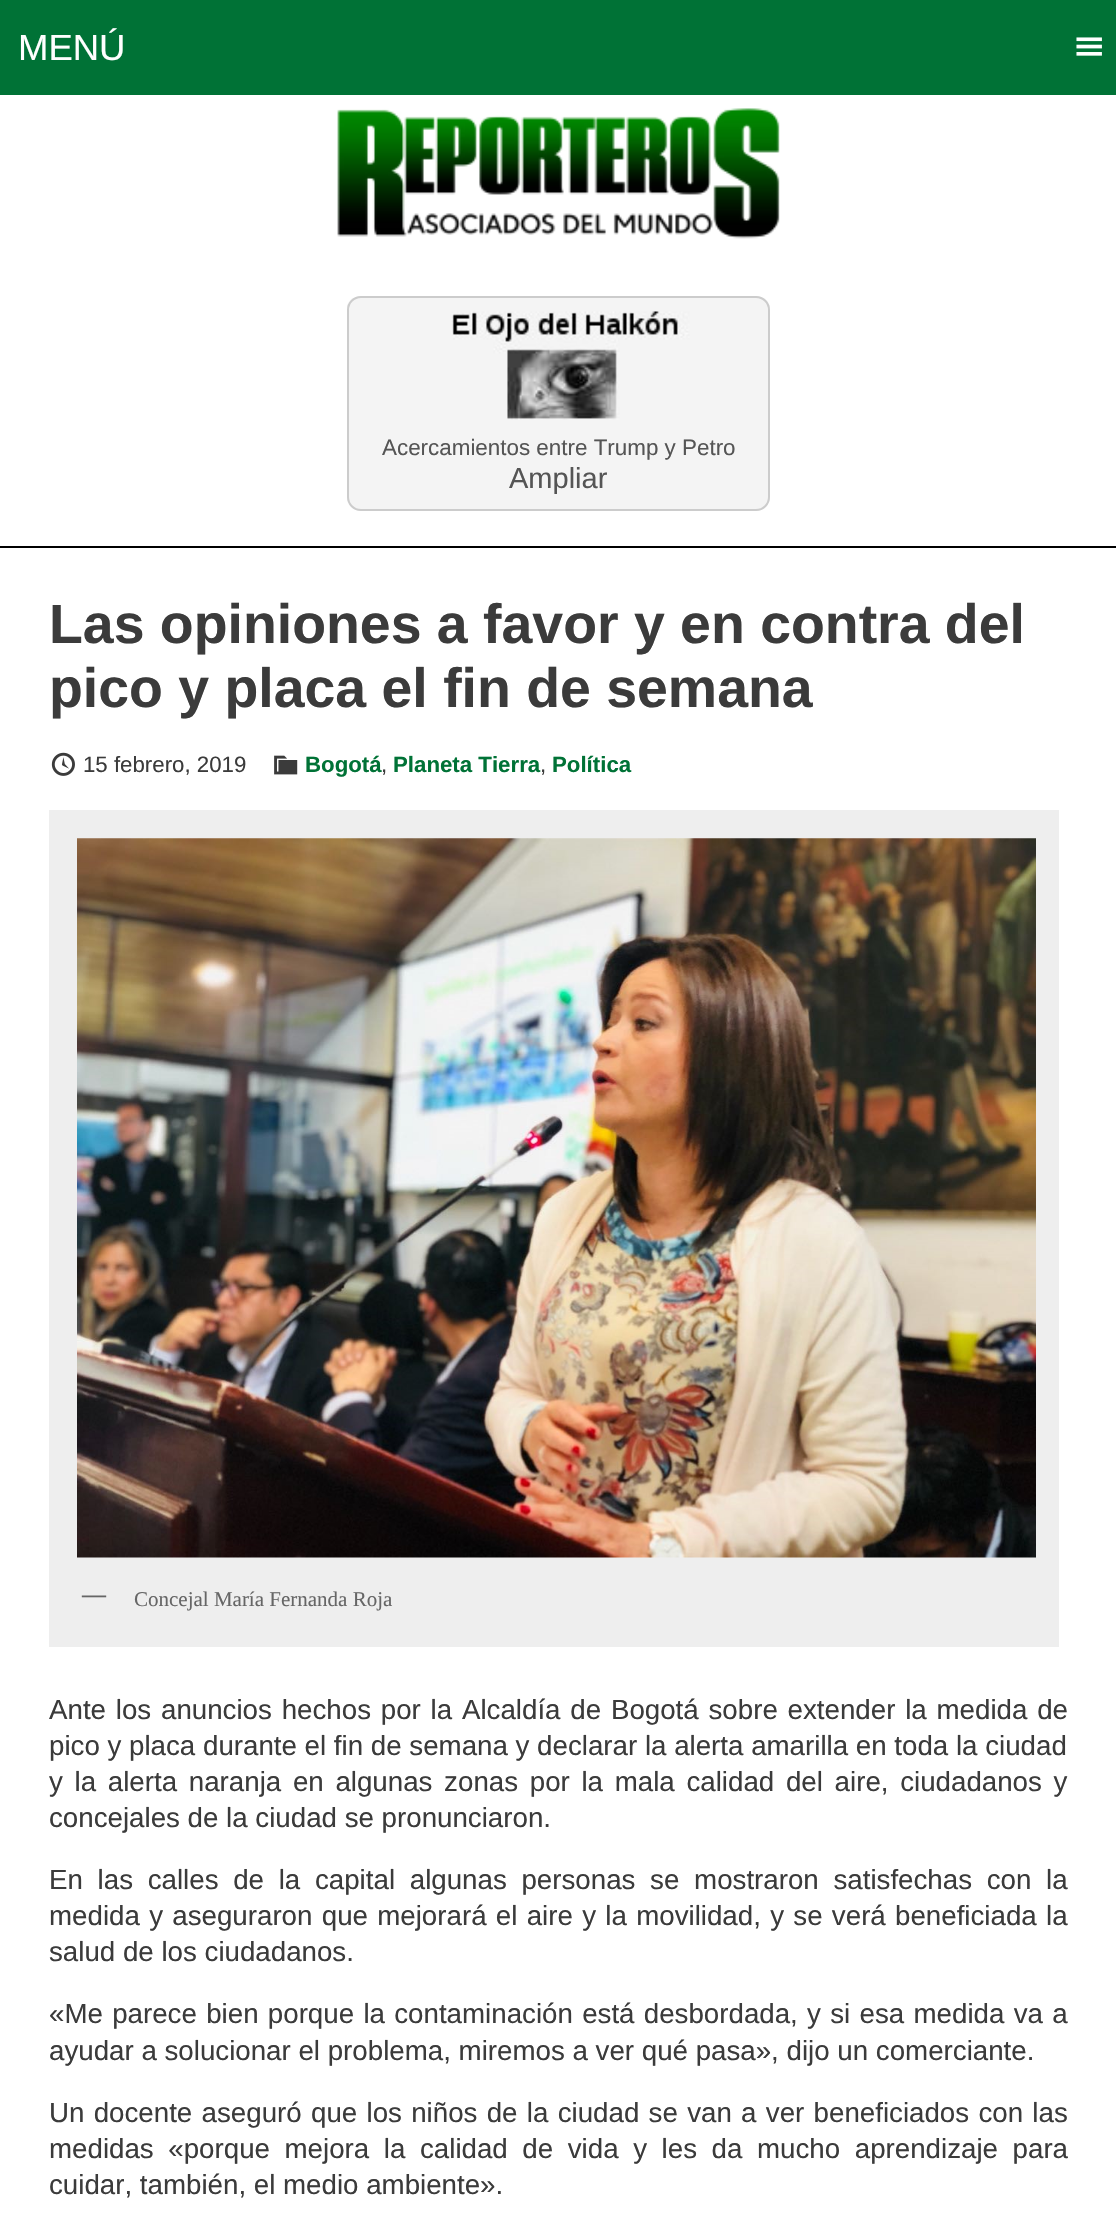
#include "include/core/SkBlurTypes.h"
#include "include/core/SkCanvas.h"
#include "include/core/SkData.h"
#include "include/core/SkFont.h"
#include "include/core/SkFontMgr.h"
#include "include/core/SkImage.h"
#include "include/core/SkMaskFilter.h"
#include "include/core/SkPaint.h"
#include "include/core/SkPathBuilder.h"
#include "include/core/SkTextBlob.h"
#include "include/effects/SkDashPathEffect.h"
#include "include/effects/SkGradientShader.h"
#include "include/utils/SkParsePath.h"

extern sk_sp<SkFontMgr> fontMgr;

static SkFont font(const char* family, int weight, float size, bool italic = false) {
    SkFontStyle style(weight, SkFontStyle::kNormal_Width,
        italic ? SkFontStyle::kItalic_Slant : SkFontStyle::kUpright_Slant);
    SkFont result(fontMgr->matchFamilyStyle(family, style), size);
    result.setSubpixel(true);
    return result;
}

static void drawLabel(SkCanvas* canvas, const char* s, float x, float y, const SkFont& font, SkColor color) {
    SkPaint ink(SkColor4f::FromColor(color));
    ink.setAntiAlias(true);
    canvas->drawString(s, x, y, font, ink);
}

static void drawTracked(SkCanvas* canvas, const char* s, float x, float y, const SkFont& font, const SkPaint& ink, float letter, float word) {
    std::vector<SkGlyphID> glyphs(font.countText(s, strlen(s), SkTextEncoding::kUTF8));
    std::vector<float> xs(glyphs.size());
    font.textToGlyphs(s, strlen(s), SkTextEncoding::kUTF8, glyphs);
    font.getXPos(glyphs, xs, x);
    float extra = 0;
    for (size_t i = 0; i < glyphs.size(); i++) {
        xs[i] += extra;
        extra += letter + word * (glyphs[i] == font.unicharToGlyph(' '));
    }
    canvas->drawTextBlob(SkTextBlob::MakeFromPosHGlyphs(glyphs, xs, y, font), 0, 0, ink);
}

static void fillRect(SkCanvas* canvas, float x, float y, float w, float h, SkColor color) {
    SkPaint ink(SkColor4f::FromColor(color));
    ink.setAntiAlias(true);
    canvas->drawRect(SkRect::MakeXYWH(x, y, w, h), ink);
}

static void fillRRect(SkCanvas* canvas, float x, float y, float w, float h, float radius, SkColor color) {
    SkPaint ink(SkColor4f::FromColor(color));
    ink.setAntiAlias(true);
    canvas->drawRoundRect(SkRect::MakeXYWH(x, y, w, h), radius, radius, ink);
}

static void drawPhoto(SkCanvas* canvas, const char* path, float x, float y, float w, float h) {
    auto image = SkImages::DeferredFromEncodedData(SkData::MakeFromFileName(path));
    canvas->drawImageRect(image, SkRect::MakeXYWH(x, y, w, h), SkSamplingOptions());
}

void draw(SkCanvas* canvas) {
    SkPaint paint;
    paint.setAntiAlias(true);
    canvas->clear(0xFFFFFFFF);
    fillRect(canvas, 0, 546, 1116, 2, 0xFF000000);
    fillRect(canvas, 0, 0, 1116, 95, 0xFF007236);
    SkFont font1 = font("Liberation Sans", 400, 36.5f);
    drawLabel(canvas, "MENÚ", 18, 60, font1, 0xFFFFFFFF);
    drawPhoto(canvas, "assets/img1.png", 1076, 37, 26, 19);
    drawPhoto(canvas, "assets/img2.png", 337, 108, 443, 131);
    fillRRect(canvas, 347, 296, 423, 215, 14, 0xFFF4F4F4);
    drawPhoto(canvas, "assets/img3.png", 347, 298, 422, 122);
    paint.setStroke(true);
    paint.setStrokeWidth(2);
    paint.setColor(0xFFCCCCCC);
    canvas->drawRoundRect(SkRect::MakeXYWH(348, 297, 421, 213), 13, 13, paint);
    SkFont font2 = font("Liberation Sans", 400, 22.4f);
    drawLabel(canvas, "Acercamientos entre Trump y Petro", 382, 455, font2, 0xFF555555);
    SkFont font3 = font("Liberation Sans", 400, 29);
    drawLabel(canvas, "Ampliar", 509, 488, font3, 0xFF555555);
    SkFont font4 = font("Liberation Sans", 700, 55.4f);
    drawLabel(canvas, "Las opiniones a favor y en contra del", 49, 643, font4, 0xFF3B3B3B);
    drawLabel(canvas, "pico y placa el fin de semana", 49, 707, font4, 0xFF3B3B3B);
    drawPhoto(canvas, "assets/img4.png", 51, 752, 24, 24);
    SkFont font5 = font("Liberation Sans", 400, 22.25f);
    drawLabel(canvas, "15 febrero, 2019", 83, 772, font5, 0xFF3B3B3B);
    drawPhoto(canvas, "assets/img5.png", 274, 755, 24, 20);
    SkFont font6 = font("Liberation Sans", 700, 22.25f);
    drawLabel(canvas, "Bogotá", 305, 772, font6, 0xFF007236);
    drawLabel(canvas, ",", 381, 772, font5, 0xFF3B3B3B);
    drawLabel(canvas, "Planeta Tierra", 393, 772, font6, 0xFF007236);
    drawLabel(canvas, ",", 540, 772, font5, 0xFF3B3B3B);
    drawLabel(canvas, "Política", 552, 772, font6, 0xFF007236);
    fillRect(canvas, 49, 810, 1010, 837, 0xFFEEEEEE);
    drawPhoto(canvas, "assets/img6.png", 77, 838, 959, 720);
    SkFont font7 = font("Liberation Serif", 700, 24);
    drawLabel(canvas, "—", 82, 1602, font7, 0xFF666666);
    SkFont font8 = font("Liberation Serif", 400, 21);
    drawLabel(canvas, "Concejal María Fernanda Roja", 134, 1606, font8, 0xFF666666);
    SkFont font9 = font("Liberation Sans", 400, 27.7f);
    paint.setStroke(false);
    paint.setColor(0xFF3B3B3B);
    drawTracked(canvas, "Ante los anuncios hechos por la Alcaldía de Bogotá sobre extender la medida de", 49, 1719, font9, paint, 0, 2.1f);
    drawLabel(canvas, "pico y placa durante el fin de semana y declarar la alerta amarilla en toda la ciudad", 49, 1755, font9, 0xFF3B3B3B);
    drawTracked(canvas, "y la alerta naranja en algunas zonas por la mala calidad del aire, ciudadanos y", 49, 1791, font9, paint, 0, 4);
    drawLabel(canvas, "concejales de la ciudad se pronunciaron.", 49, 1827, font9, 0xFF3B3B3B);
    drawTracked(canvas, "En las calles de la capital algunas personas se mostraron satisfechas con la", 49, 1889, font9, paint, 0, 7);
    drawTracked(canvas, "medida y aseguraron que mejorará el aire y la movilidad, y se verá beneficiada la", 49, 1925, font9, paint, 0, 1.6f);
    drawLabel(canvas, "salud de los ciudadanos.", 49, 1961, font9, 0xFF3B3B3B);
    drawTracked(canvas, "«Me parece bien porque la contaminación está desbordada, y si esa medida va a", 49, 2023, font9, paint, 0, 1.6f);
    drawLabel(canvas, "ayudar a solucionar el problema, miremos a ver qué pasa», dijo un comerciante.", 49, 2060, font9, 0xFF3B3B3B);
    drawTracked(canvas, "Un docente aseguró que los niños de la ciudad se van a ver beneficiados con las", 49, 2122, font9, paint, 0, 1.6f);
    drawTracked(canvas, "medidas «porque mejora la calidad de vida y les da mucho aprendizaje para", 49, 2158, font9, paint, 0, 6.9f);
    drawLabel(canvas, "cuidar, también, el medio ambiente».", 49, 2194, font9, 0xFF3B3B3B);
}
